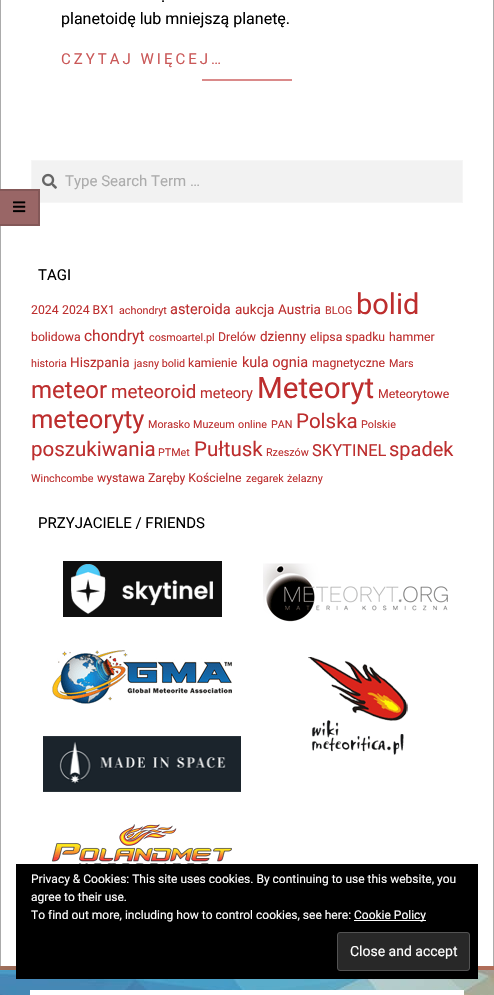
#include "include/core/SkBlurTypes.h"
#include "include/core/SkCanvas.h"
#include "include/core/SkData.h"
#include "include/core/SkFont.h"
#include "include/core/SkFontMgr.h"
#include "include/core/SkImage.h"
#include "include/core/SkMaskFilter.h"
#include "include/core/SkPaint.h"
#include "include/core/SkPathBuilder.h"
#include "include/core/SkTextBlob.h"
#include "include/effects/SkDashPathEffect.h"
#include "include/effects/SkGradientShader.h"
#include "include/utils/SkParsePath.h"

extern sk_sp<SkFontMgr> fontMgr;

static SkFont font(const char* family, int weight, float size, bool italic = false) {
    SkFontStyle style(weight, SkFontStyle::kNormal_Width,
        italic ? SkFontStyle::kItalic_Slant : SkFontStyle::kUpright_Slant);
    SkFont result(fontMgr->matchFamilyStyle(family, style), size);
    result.setSubpixel(true);
    return result;
}

static void drawLabel(SkCanvas* canvas, const char* s, float x, float y, const SkFont& font, SkColor color) {
    SkPaint ink(SkColor4f::FromColor(color));
    ink.setAntiAlias(true);
    canvas->drawString(s, x, y, font, ink);
}

static void drawTracked(SkCanvas* canvas, const char* s, float x, float y, const SkFont& font, const SkPaint& ink, float letter, float word) {
    std::vector<SkGlyphID> glyphs(font.countText(s, strlen(s), SkTextEncoding::kUTF8));
    std::vector<float> xs(glyphs.size());
    font.textToGlyphs(s, strlen(s), SkTextEncoding::kUTF8, glyphs);
    font.getXPos(glyphs, xs, x);
    float extra = 0;
    for (size_t i = 0; i < glyphs.size(); i++) {
        xs[i] += extra;
        extra += letter + word * (glyphs[i] == font.unicharToGlyph(' '));
    }
    canvas->drawTextBlob(SkTextBlob::MakeFromPosHGlyphs(glyphs, xs, y, font), 0, 0, ink);
}

static void fillRect(SkCanvas* canvas, float x, float y, float w, float h, SkColor color) {
    SkPaint ink(SkColor4f::FromColor(color));
    ink.setAntiAlias(true);
    canvas->drawRect(SkRect::MakeXYWH(x, y, w, h), ink);
}

static void drawPhoto(SkCanvas* canvas, const char* path, float x, float y, float w, float h) {
    auto image = SkImages::DeferredFromEncodedData(SkData::MakeFromFileName(path));
    canvas->drawImageRect(image, SkRect::MakeXYWH(x, y, w, h), SkSamplingOptions());
}

static SkPath parsePath(const char* data, bool evenOdd = false) {
    SkPath result = *SkParsePath::FromSVGString(data);
    if (evenOdd) result.setFillType(SkPathFillType::kEvenOdd);
    return result;
}

void draw(SkCanvas* canvas) {
    SkPaint paint;
    paint.setAntiAlias(true);
    canvas->clear(0xFFFFFFFF);
    fillRect(canvas, 0, 0, 1, 966, 0xFFABABAB);
    paint.setColor(0xFFF2F2F2);
    canvas->drawRect(SkRect::MakeXYWH(31.5f, 160.5f, 431, 42), paint);
    paint.setStroke(true);
    paint.setStrokeWidth(1);
    paint.setColor(0xFFF6F6F6);
    canvas->drawRect(SkRect::MakeXYWH(31.5f, 160.5f, 431, 42), paint);
    fillRect(canvas, 0, 189, 40, 37, 0xFF996666);
    paint.setStroke(false);
    paint.setColor(0xFF845858);
    canvas->drawPath(parsePath("M0 189H40L38 191H0Z"), paint);
    paint.setColor(0x24000000);
    canvas->drawPath(parsePath("M40 189V226L38 224V191Z"), paint);
    canvas->drawPath(parsePath("M40 226H0V224H38Z"), paint);
    drawPhoto(canvas, "assets/img1.png", 13, 201, 13, 12);
    fillRect(canvas, 493, 0, 1, 966, 0xFFABABAB);
    SkFont font1 = font("Roboto", 400, 16);
    drawLabel(canvas, ".", 161, 2, font1, 0xFF000000);
    drawLabel(canvas, "planetoidę lub mniejszą planetę.", 61, 24, font1, 0xFF000000);
    SkFont font2 = font("Roboto", 400, 15);
    paint.setColor(0xFFCA5858);
    drawTracked(canvas, "CZYTAJ WIĘCEJ…", 61, 64, font2, paint, 3, 0);
    fillRect(canvas, 202, 79, 90, 2, 0xFFDA8A8A);
    drawPhoto(canvas, "assets/img2.png", 42, 173, 15, 16);
    drawLabel(canvas, "Type Search Term …", 65, 186, font2, 0xFFACACAC);
    drawLabel(canvas, "TAGI", 38, 280, font2, 0xFF000000);
    SkFont font3 = font("Roboto", 400, 12.25f);
    drawLabel(canvas, "2024", 31, 314, font3, 0xFFBD2E2E);
    drawLabel(canvas, "2024 BX1", 62, 314, font3, 0xFFBD2E2E);
    SkFont font4 = font("Roboto", 400, 10.75f);
    drawLabel(canvas, "achondryt", 119, 314, font4, 0xFFBD2E2E);
    SkFont font5 = font("Roboto", 400, 14.5f);
    drawLabel(canvas, "asteroida", 170, 314, font5, 0xFFBD2E2E);
    SkFont font6 = font("Roboto", 400, 13.5f);
    drawLabel(canvas, "aukcja", 235, 314, font6, 0xFFBD2E2E);
    drawLabel(canvas, "Austria", 278, 314, font6, 0xFFBD2E2E);
    drawLabel(canvas, "BLOG", 325, 314, font4, 0xFFBD2E2E);
    SkFont font7 = font("Roboto", 400, 29);
    drawLabel(canvas, "bolid", 356, 314, font7, 0xFFBD2E2E);
    drawLabel(canvas, "bolidowa", 31, 341, font3, 0xFFBD2E2E);
    SkFont font8 = font("Roboto", 400, 15.5f);
    drawLabel(canvas, "chondryt", 84, 341, font8, 0xFFBD2E2E);
    drawLabel(canvas, "cosmoartel.pl", 149, 341, font4, 0xFFBD2E2E);
    drawLabel(canvas, "Drelów", 218, 341, font3, 0xFFBD2E2E);
    drawLabel(canvas, "dzienny", 260, 341, font6, 0xFFBD2E2E);
    drawLabel(canvas, "elipsa spadku", 310, 341, font3, 0xFFBD2E2E);
    drawLabel(canvas, "hammer", 389, 341, font3, 0xFFBD2E2E);
    drawLabel(canvas, "historia", 31, 367, font4, 0xFFBD2E2E);
    drawLabel(canvas, "Hiszpania", 70, 367, font6, 0xFFBD2E2E);
    drawLabel(canvas, "jasny bolid", 134, 367, font4, 0xFFBD2E2E);
    drawLabel(canvas, "kamienie", 188, 367, font3, 0xFFBD2E2E);
    drawLabel(canvas, "kula ognia", 242, 367, font5, 0xFFBD2E2E);
    drawLabel(canvas, "magnetyczne", 312, 367, font3, 0xFFBD2E2E);
    drawLabel(canvas, "Mars", 389, 367, font4, 0xFFBD2E2E);
    SkFont font9 = font("Roboto", 400, 24);
    drawLabel(canvas, "meteor", 31, 398, font9, 0xFFBD2E2E);
    SkFont font10 = font("Roboto", 400, 18.75f);
    drawLabel(canvas, "meteoroid", 111, 398, font10, 0xFFBD2E2E);
    drawLabel(canvas, "meteory", 200, 398, font5, 0xFFBD2E2E);
    SkFont font11 = font("Roboto", 400, 29.5f);
    drawLabel(canvas, "Meteoryt", 257, 398, font11, 0xFFBD2E2E);
    drawLabel(canvas, "Meteorytowe", 378, 398, font3, 0xFFBD2E2E);
    SkFont font12 = font("Roboto", 400, 25.5f);
    drawLabel(canvas, "meteoryty", 31, 428, font12, 0xFFBD2E2E);
    drawLabel(canvas, "Morasko", 148, 428, font4, 0xFFBD2E2E);
    drawLabel(canvas, "Muzeum", 193, 428, font4, 0xFFBD2E2E);
    drawLabel(canvas, "online", 238, 428, font4, 0xFFBD2E2E);
    drawLabel(canvas, "PAN", 271, 428, font4, 0xFFBD2E2E);
    SkFont font13 = font("Roboto", 400, 20.5f);
    drawLabel(canvas, "Polska", 296, 428, font13, 0xFFBD2E2E);
    drawLabel(canvas, "Polskie", 361, 428, font4, 0xFFBD2E2E);
    drawLabel(canvas, "poszukiwania", 31, 456, font13, 0xFFBD2E2E);
    drawLabel(canvas, "PTMet", 158, 456, font4, 0xFFBD2E2E);
    drawLabel(canvas, "Pułtusk", 194, 456, font13, 0xFFBD2E2E);
    drawLabel(canvas, "Rzeszów", 266, 456, font4, 0xFFBD2E2E);
    SkFont font14 = font("Roboto", 400, 16.5f);
    drawLabel(canvas, "SKYTINEL", 312, 456, font14, 0xFFBD2E2E);
    SkFont font15 = font("Roboto", 400, 20);
    drawLabel(canvas, "spadek", 389, 456, font15, 0xFFBD2E2E);
    drawLabel(canvas, "Winchcombe", 31, 482, font4, 0xFFBD2E2E);
    drawLabel(canvas, "wystawa", 97, 482, font3, 0xFFBD2E2E);
    drawLabel(canvas, "Zaręby Kościelne", 148, 482, font3, 0xFFBD2E2E);
    drawLabel(canvas, "zegarek", 246, 482, font4, 0xFFBD2E2E);
    drawLabel(canvas, "żelazny", 287, 482, font4, 0xFFBD2E2E);
    drawLabel(canvas, "PRZYJACIELE / FRIENDS", 38, 528, font2, 0xFF000000);
    drawPhoto(canvas, "assets/img3.png", 63, 561, 159, 56);
    drawPhoto(canvas, "assets/img4.png", 52, 650, 180, 54);
    drawPhoto(canvas, "assets/img5.png", 43, 736, 198, 56);
    drawPhoto(canvas, "assets/img6.png", 52, 824, 180, 40);
    drawPhoto(canvas, "assets/img7.png", 263, 563, 185, 59);
    drawPhoto(canvas, "assets/img8.png", 308, 657, 100, 98);
    drawPhoto(canvas, "assets/img9.png", 0, 966, 494, 29);
    fillRect(canvas, 0, 966, 494, 4, 0x24000000);
    fillRect(canvas, 30, 990, 434, 5, 0xFFFFFFFF);
    fillRect(canvas, 16, 864, 462, 115, 0xFF000000);
    SkFont font16 = font("Roboto", 400, 12);
    drawLabel(canvas, "Privacy & Cookies: This site uses cookies. By continuing to use this website, you", 31, 883, font16, 0xFFFFFFFF);
    drawLabel(canvas, "agree to their use.", 31, 901, font16, 0xFFFFFFFF);
    drawLabel(canvas, "To find out more, including how to control cookies, see here:", 31, 919, font16, 0xFFFFFFFF);
    fillRect(canvas, 354, 920, 72, 1, 0xFFFFFFFF);
    drawLabel(canvas, "Cookie Policy", 354, 919, font16, 0xFFFFFFFF);
    paint.setColor(0xFF282828);
    canvas->drawRoundRect(SkRect::MakeXYWH(337.5f, 932.5f, 132, 38), 2.5f, 2.5f, paint);
    paint.setStroke(true);
    paint.setColor(0xFF535353);
    canvas->drawRoundRect(SkRect::MakeXYWH(337.5f, 932.5f, 132, 38), 2.5f, 2.5f, paint);
    SkFont font17 = font("Roboto", 400, 14);
    drawLabel(canvas, "Close and accept", 350, 956, font17, 0xFFFFFFFF);
}
